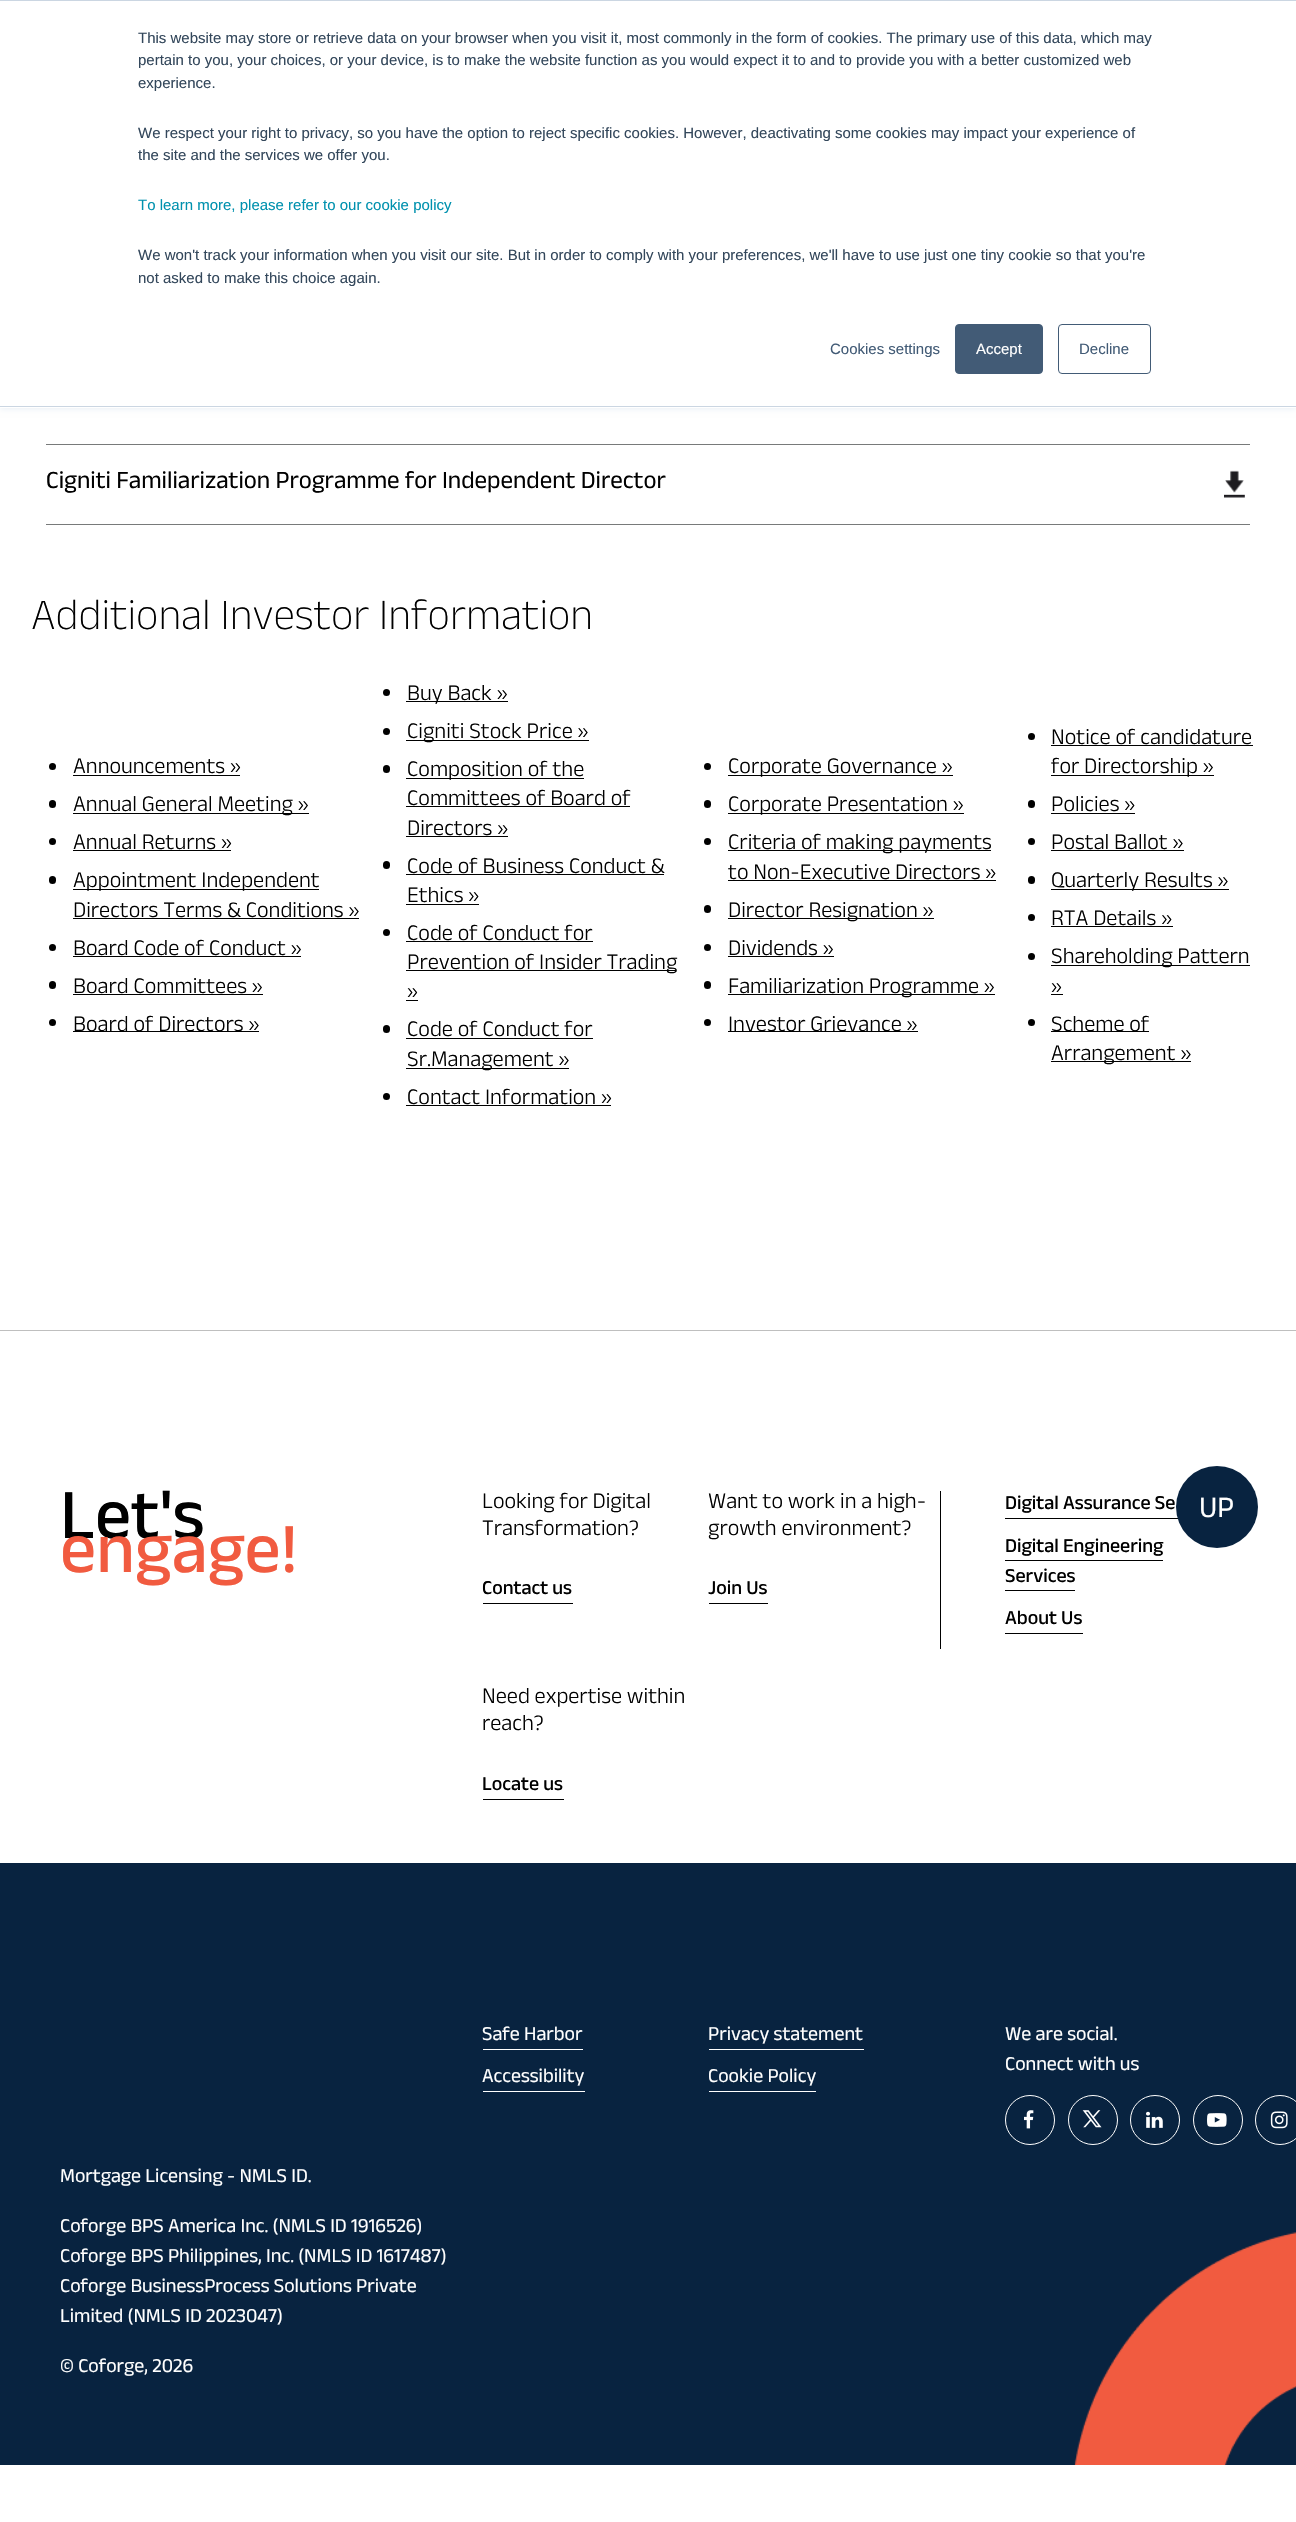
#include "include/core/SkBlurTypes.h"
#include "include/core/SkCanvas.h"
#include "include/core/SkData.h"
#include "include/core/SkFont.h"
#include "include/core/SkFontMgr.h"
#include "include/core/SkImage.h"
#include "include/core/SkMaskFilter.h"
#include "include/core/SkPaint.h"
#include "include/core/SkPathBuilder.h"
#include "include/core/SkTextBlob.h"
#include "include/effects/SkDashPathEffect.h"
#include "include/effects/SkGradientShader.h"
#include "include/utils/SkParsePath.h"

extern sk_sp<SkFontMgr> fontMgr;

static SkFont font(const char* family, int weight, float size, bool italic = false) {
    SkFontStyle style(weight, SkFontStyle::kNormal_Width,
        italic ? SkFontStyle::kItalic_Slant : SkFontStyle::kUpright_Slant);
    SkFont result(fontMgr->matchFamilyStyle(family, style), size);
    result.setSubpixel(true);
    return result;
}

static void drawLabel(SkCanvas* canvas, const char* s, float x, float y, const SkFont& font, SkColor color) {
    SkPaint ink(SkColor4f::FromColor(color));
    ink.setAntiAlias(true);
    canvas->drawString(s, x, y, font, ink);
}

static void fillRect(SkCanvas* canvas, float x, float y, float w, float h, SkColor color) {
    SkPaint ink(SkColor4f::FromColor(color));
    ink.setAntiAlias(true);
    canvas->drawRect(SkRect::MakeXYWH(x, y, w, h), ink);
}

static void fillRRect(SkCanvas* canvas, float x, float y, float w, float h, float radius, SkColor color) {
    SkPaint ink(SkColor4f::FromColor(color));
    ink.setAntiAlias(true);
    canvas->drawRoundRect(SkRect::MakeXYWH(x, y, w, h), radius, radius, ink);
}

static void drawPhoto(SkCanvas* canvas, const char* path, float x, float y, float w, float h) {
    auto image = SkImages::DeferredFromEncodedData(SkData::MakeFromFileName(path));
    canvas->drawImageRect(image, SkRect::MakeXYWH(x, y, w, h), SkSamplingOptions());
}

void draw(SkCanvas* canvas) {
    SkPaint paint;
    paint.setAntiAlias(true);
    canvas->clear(0xFFFFFFFF);
    paint.setColor(0xFFEAF0F6);
    paint.setMaskFilter(SkMaskFilter::MakeBlur(kNormal_SkBlurStyle, 3));
    canvas->drawRect(SkRect::MakeXYWH(0, 1, 1296, 408), paint);
    paint.setMaskFilter(nullptr);
    fillRect(canvas, 0, 1, 1296, 407, 0xFFFFFFFF);
    fillRect(canvas, 0, 0, 1296, 1, 0xFFCBD6E2);
    fillRect(canvas, 0, 406, 1296, 1, 0xFFCBD6E2);
    SkFont font1 = font("Liberation Sans", 400, 15);
    drawLabel(canvas, "This website may store or retrieve data on your browser when you visit it, most commonly in the form of cookies. The primary use of this data, which may", 138, 43, font1, 0xFF33475B);
    drawLabel(canvas, "pertain to you, your choices, or your device, is to make the website function as you would expect it to and to provide you with a better customized web", 138, 65, font1, 0xFF33475B);
    drawLabel(canvas, "experience.", 138, 88, font1, 0xFF33475B);
    drawLabel(canvas, "We respect your right to privacy, so you have the option to reject specific cookies. However, deactivating some cookies may impact your experience of", 138, 138, font1, 0xFF33475B);
    drawLabel(canvas, "the site and the services we offer you.", 138, 160, font1, 0xFF33475B);
    drawLabel(canvas, "To learn more, please refer to our cookie policy", 138, 210, font1, 0xFF0091AE);
    drawLabel(canvas, "We won't track your information when you visit our site. But in order to comply with your preferences, we'll have to use just one tiny cookie so that you're", 138, 260, font1, 0xFF33475B);
    drawLabel(canvas, "not asked to make this choice again.", 138, 283, font1, 0xFF33475B);
    drawLabel(canvas, "Cookies settings", 830, 354, font1, 0xFF425B76);
    paint.setColor(0xFF425B76);
    canvas->drawRoundRect(SkRect::MakeXYWH(955.5f, 324.5f, 87, 49), 3.5f, 3.5f, paint);
    paint.setStroke(true);
    paint.setStrokeWidth(1);
    canvas->drawRoundRect(SkRect::MakeXYWH(955.5f, 324.5f, 87, 49), 3.5f, 3.5f, paint);
    drawLabel(canvas, "Accept", 976, 354, font1, 0xFFFFFFFF);
    canvas->drawRoundRect(SkRect::MakeXYWH(1058.5f, 324.5f, 92, 49), 3.5f, 3.5f, paint);
    drawLabel(canvas, "Decline", 1079, 354, font1, 0xFF425B76);
    fillRect(canvas, 46, 444, 1204, 1, 0xFF787A7A);
    fillRect(canvas, 46, 524, 1204, 1, 0xFF787A7A);
    SkFont font2 = font("Anek Devanagari", 400, 25);
    drawLabel(canvas, "Cigniti Familiarization Programme for Independent Director", 46, 488, font2, 0xFF000000);
    drawPhoto(canvas, "assets/img1.png", 1224, 470, 21, 28);
    SkFont font3 = font("Anek Devanagari", 200, 44);
    drawLabel(canvas, "Additional Investor Information", 31, 629, font3, 0xFF000000);
    paint.setStroke(false);
    paint.setColor(0xFF000000);
    canvas->drawCircle(52.5f, 766.5f, 3.5f, paint);
    SkFont font4 = font("Anek Devanagari", 300, 22.5f);
    drawLabel(canvas, "Announcements »", 73, 773, font4, 0xFF000000);
    fillRect(canvas, 73, 775, 167, 1, 0xFF000000);
    fillRRect(canvas, 49, 800, 7, 8, 3.5f, 0xFF000000);
    fillRect(canvas, 73, 813, 236, 1, 0xFF000000);
    drawLabel(canvas, "Annual General Meeting »", 73, 811, font4, 0xFF000000);
    canvas->drawCircle(52.5f, 841.5f, 3.5f, paint);
    drawLabel(canvas, "Annual Returns »", 73, 849, font4, 0xFF000000);
    fillRect(canvas, 73, 850, 158, 1, 0xFF000000);
    fillRRect(canvas, 49, 876, 7, 8, 3.5f, 0xFF000000);
    fillRect(canvas, 73, 889, 246, 1, 0xFF000000);
    drawLabel(canvas, "Appointment Independent", 73, 887, font4, 0xFF000000);
    drawLabel(canvas, "Directors Terms & Conditions »", 73, 917, font4, 0xFF000000);
    fillRect(canvas, 73, 918, 286, 1, 0xFF000000);
    canvas->drawCircle(52.5f, 947.5f, 3.5f, paint);
    drawLabel(canvas, "Board Code of Conduct »", 73, 955, font4, 0xFF000000);
    fillRect(canvas, 73, 956, 228, 1, 0xFF000000);
    fillRRect(canvas, 49, 981, 7, 8, 3.5f, 0xFF000000);
    drawLabel(canvas, "Board Committees »", 73, 993, font4, 0xFF000000);
    fillRect(canvas, 73, 994, 190, 1, 0xFF000000);
    canvas->drawCircle(52.5f, 1022.5f, 3.5f, paint);
    fillRect(canvas, 73, 1031, 186, 1, 0xFF000000);
    drawLabel(canvas, "Board of Directors »", 73, 1031, font4, 0xFF000000);
    canvas->drawCircle(386.5f, 692.5f, 3.5f, paint);
    fillRect(canvas, 406, 701, 102, 1, 0xFF000000);
    drawLabel(canvas, "Buy Back »", 407, 700, font4, 0xFF000000);
    canvas->drawCircle(386.5f, 731.5f, 3.5f, paint);
    fillRect(canvas, 406, 740, 183, 1, 0xFF000000);
    drawLabel(canvas, "Cigniti Stock Price »", 407, 738, font4, 0xFF000000);
    fillRRect(canvas, 383, 765, 7, 8, 3.5f, 0xFF000000);
    fillRect(canvas, 406, 778, 178, 1, 0xFF000000);
    drawLabel(canvas, "Composition of the", 407, 776, font4, 0xFF000000);
    drawLabel(canvas, "Committees of Board of", 407, 805, font4, 0xFF000000);
    fillRect(canvas, 406, 806, 224, 1, 0xFF000000);
    drawLabel(canvas, "Directors »", 407, 835, font4, 0xFF000000);
    fillRect(canvas, 406, 836, 102, 1, 0xFF000000);
    fillRRect(canvas, 383, 861, 7, 8, 3.5f, 0xFF000000);
    drawLabel(canvas, "Code of Business Conduct &", 407, 873, font4, 0xFF000000);
    fillRect(canvas, 406, 874, 258, 1, 0xFF000000);
    drawLabel(canvas, "Ethics »", 407, 902, font4, 0xFF000000);
    fillRect(canvas, 406, 904, 73, 1, 0xFF000000);
    canvas->drawCircle(386.5f, 932.5f, 3.5f, paint);
    drawLabel(canvas, "Code of Conduct for", 407, 940, font4, 0xFF000000);
    fillRect(canvas, 406, 941, 187, 1, 0xFF000000);
    fillRect(canvas, 406, 970, 270, 1, 0xFF000000);
    drawLabel(canvas, "Prevention of Insider Trading", 407, 969, font4, 0xFF000000);
    drawLabel(canvas, "»", 407, 998, font4, 0xFF000000);
    fillRect(canvas, 406, 1000, 12, 1, 0xFF000000);
    fillRRect(canvas, 383, 1025, 7, 8, 3.5f, 0xFF000000);
    drawLabel(canvas, "Code of Conduct for", 407, 1036, font4, 0xFF000000);
    fillRect(canvas, 406, 1038, 187, 1, 0xFF000000);
    fillRect(canvas, 406, 1068, 163, 1, 0xFF000000);
    drawLabel(canvas, "Sr.Management »", 407, 1066, font4, 0xFF000000);
    canvas->drawCircle(386.5f, 1096.5f, 3.5f, paint);
    drawLabel(canvas, "Contact Information »", 407, 1104, font4, 0xFF000000);
    fillRect(canvas, 406, 1105, 205, 1, 0xFF000000);
    canvas->drawCircle(707.5f, 766.5f, 3.5f, paint);
    fillRect(canvas, 728, 775, 225, 1, 0xFF000000);
    drawLabel(canvas, "Corporate Governance »", 728, 773, font4, 0xFF000000);
    fillRRect(canvas, 704, 800, 7, 8, 3.5f, 0xFF000000);
    fillRect(canvas, 728, 813, 236, 1, 0xFF000000);
    drawLabel(canvas, "Corporate Presentation »", 728, 811, font4, 0xFF000000);
    canvas->drawCircle(707.5f, 841.5f, 3.5f, paint);
    fillRect(canvas, 728, 850, 263, 1, 0xFF000000);
    drawLabel(canvas, "Criteria of making payments", 728, 849, font4, 0xFF000000);
    drawLabel(canvas, "to Non-Executive Directors »", 728, 879, font4, 0xFF000000);
    fillRect(canvas, 728, 880, 268, 1, 0xFF000000);
    fillRRect(canvas, 704, 905, 7, 8, 3.5f, 0xFF000000);
    fillRect(canvas, 728, 918, 206, 1, 0xFF000000);
    drawLabel(canvas, "Director Resignation »", 728, 917, font4, 0xFF000000);
    canvas->drawCircle(707.5f, 947.5f, 3.5f, paint);
    drawLabel(canvas, "Dividends »", 728, 955, font4, 0xFF000000);
    fillRect(canvas, 728, 956, 106, 1, 0xFF000000);
    fillRRect(canvas, 704, 981, 7, 8, 3.5f, 0xFF000000);
    fillRect(canvas, 728, 994, 267, 1, 0xFF000000);
    drawLabel(canvas, "Familiarization Programme »", 728, 993, font4, 0xFF000000);
    canvas->drawCircle(707.5f, 1022.5f, 3.5f, paint);
    fillRect(canvas, 728, 1031, 190, 1, 0xFF000000);
    drawLabel(canvas, "Investor Grievance »", 728, 1031, font4, 0xFF000000);
    canvas->drawCircle(1031.5f, 736.5f, 3.5f, paint);
    drawLabel(canvas, "Notice of candidature", 1051, 744, font4, 0xFF000000);
    fillRect(canvas, 1051, 745, 202, 1, 0xFF000000);
    fillRect(canvas, 1051, 775, 163, 1, 0xFF000000);
    drawLabel(canvas, "for Directorship »", 1051, 773, font4, 0xFF000000);
    fillRRect(canvas, 1028, 800, 7, 8, 3.5f, 0xFF000000);
    drawLabel(canvas, "Policies »", 1051, 811, font4, 0xFF000000);
    fillRect(canvas, 1051, 813, 84, 1, 0xFF000000);
    canvas->drawCircle(1031.5f, 841.5f, 3.5f, paint);
    drawLabel(canvas, "Postal Ballot »", 1051, 849, font4, 0xFF000000);
    fillRect(canvas, 1051, 850, 133, 1, 0xFF000000);
    fillRRect(canvas, 1028, 876, 7, 8, 3.5f, 0xFF000000);
    fillRect(canvas, 1051, 889, 178, 1, 0xFF000000);
    drawLabel(canvas, "Quarterly Results »", 1051, 887, font4, 0xFF000000);
    canvas->drawCircle(1031.5f, 917.5f, 3.5f, paint);
    drawLabel(canvas, "RTA Details »", 1051, 925, font4, 0xFF000000);
    fillRect(canvas, 1051, 926, 122, 1, 0xFF000000);
    canvas->drawCircle(1031.5f, 956.5f, 3.5f, paint);
    fillRect(canvas, 1051, 965, 199, 1, 0xFF000000);
    drawLabel(canvas, "Shareholding Pattern", 1051, 963, font4, 0xFF000000);
    drawLabel(canvas, "»", 1051, 993, font4, 0xFF000000);
    fillRect(canvas, 1051, 994, 12, 1, 0xFF000000);
    canvas->drawCircle(1031.5f, 1022.5f, 3.5f, paint);
    fillRect(canvas, 1051, 1031, 98, 1, 0xFF000000);
    drawLabel(canvas, "Scheme of", 1051, 1031, font4, 0xFF000000);
    fillRect(canvas, 1051, 1061, 140, 1, 0xFF000000);
    drawLabel(canvas, "Arrangement »", 1051, 1060, font4, 0xFF000000);
    fillRect(canvas, 0, 1330, 1296, 1, 0xFFBFBFBF);
    SkFont font5 = font("Anek Devanagari", 500, 71.5f);
    drawLabel(canvas, "Let's", 60, 1538, font5, 0xFF000000);
    drawLabel(canvas, "engage!", 60, 1572, font5, 0xFFF15B40);
    drawLabel(canvas, "Looking for Digital", 482, 1508, font4, 0xFF000000);
    drawLabel(canvas, "Transformation?", 482, 1535, font4, 0xFF000000);
    SkFont font6 = font("Anek Devanagari", 500, 20);
    drawLabel(canvas, "Contact us", 482, 1594, font6, 0xFF000000);
    fillRect(canvas, 483, 1603, 90, 1, 0xFF000000);
    drawLabel(canvas, "Want to work in a high-", 708, 1508, font4, 0xFF000000);
    drawLabel(canvas, "growth environment?", 708, 1535, font4, 0xFF000000);
    drawLabel(canvas, "Join Us", 708, 1594, font6, 0xFF000000);
    fillRect(canvas, 709, 1603, 59, 1, 0xFF000000);
    drawLabel(canvas, "Need expertise within", 482, 1703, font4, 0xFF000000);
    drawLabel(canvas, "reach?", 482, 1730, font4, 0xFF000000);
    drawLabel(canvas, "Locate us", 482, 1790, font6, 0xFF000000);
    fillRect(canvas, 483, 1799, 81, 1, 0xFF000000);
    fillRect(canvas, 940, 1491, 1, 158, 0xFF000000);
    drawLabel(canvas, "Digital Assurance Se", 1005, 1509, font6, 0xFF000000);
    fillRect(canvas, 1005, 1518, 173, 1, 0xFF000000);
    drawLabel(canvas, "Digital Engineering", 1005, 1552, font6, 0xFF000000);
    fillRect(canvas, 1005, 1560, 158, 1, 0xFF000000);
    drawLabel(canvas, "Services", 1005, 1582, font6, 0xFF000000);
    fillRect(canvas, 1005, 1590, 70, 1, 0xFF000000);
    drawLabel(canvas, "About Us", 1005, 1624, font6, 0xFF000000);
    fillRect(canvas, 1005, 1633, 78, 1, 0xFF000000);
    paint.setColor(0xFF082340);
    canvas->drawCircle(1217, 1507, 41, paint);
    SkFont font7 = font("Anek Devanagari", 400, 30);
    drawLabel(canvas, "UP", 1199, 1517, font7, 0xFFFFFFFF);
    fillRect(canvas, 0, 1863, 1296, 602, 0xFF082340);
    drawPhoto(canvas, "assets/img2.png", 1074, 2232, 222, 233);
    SkFont font8 = font("Anek Devanagari", 400, 20);
    drawLabel(canvas, "Safe Harbor", 482, 2040, font8, 0xFFFFFFFF);
    fillRect(canvas, 483, 2049, 100, 1, 0xFFFFFFFF);
    drawLabel(canvas, "Privacy statement", 708, 2040, font8, 0xFFFFFFFF);
    fillRect(canvas, 709, 2049, 155, 1, 0xFFFFFFFF);
    drawLabel(canvas, "Accessibility", 482, 2082, font8, 0xFFFFFFFF);
    fillRect(canvas, 483, 2091, 102, 1, 0xFFFFFFFF);
    drawLabel(canvas, "Cookie Policy", 708, 2082, font8, 0xFFFFFFFF);
    fillRect(canvas, 709, 2091, 107, 1, 0xFFFFFFFF);
    drawLabel(canvas, "We are social.", 1005, 2040, font8, 0xFFFFFFFF);
    drawLabel(canvas, "Connect with us", 1005, 2070, font8, 0xFFFFFFFF);
    paint.setStroke(true);
    paint.setColor(0xFFFFFFFF);
    canvas->drawCircle(1030, 2120, 24.5f, paint);
    drawPhoto(canvas, "assets/img3.png", 1024, 2110, 10, 19);
    canvas->drawCircle(1093, 2120, 24.5f, paint);
    drawPhoto(canvas, "assets/img4.png", 1082, 2110, 20, 18);
    canvas->drawCircle(1155, 2120, 24.5f, paint);
    drawPhoto(canvas, "assets/img5.png", 1146, 2111, 17, 17);
    canvas->drawCircle(1218, 2120, 24.5f, paint);
    drawPhoto(canvas, "assets/img6.png", 1207, 2113, 20, 14);
    canvas->drawCircle(1280, 2120, 24.5f, paint);
    drawPhoto(canvas, "assets/img7.png", 1270, 2111, 18, 18);
    drawLabel(canvas, "Mortgage Licensing - NMLS ID.", 60, 2182, font8, 0xFFFFFFFF);
    drawLabel(canvas, "Coforge BPS America Inc. (NMLS ID 1916526)", 60, 2232, font8, 0xFFFFFFFF);
    drawLabel(canvas, "Coforge BPS Philippines, Inc. (NMLS ID 1617487)", 60, 2262, font8, 0xFFFFFFFF);
    drawLabel(canvas, "Coforge BusinessProcess Solutions Private", 60, 2292, font8, 0xFFFFFFFF);
    drawLabel(canvas, "Limited (NMLS ID 2023047)", 60, 2322, font8, 0xFFFFFFFF);
    drawLabel(canvas, "© Coforge, 2026", 60, 2372, font8, 0xFFFFFFFF);
}
